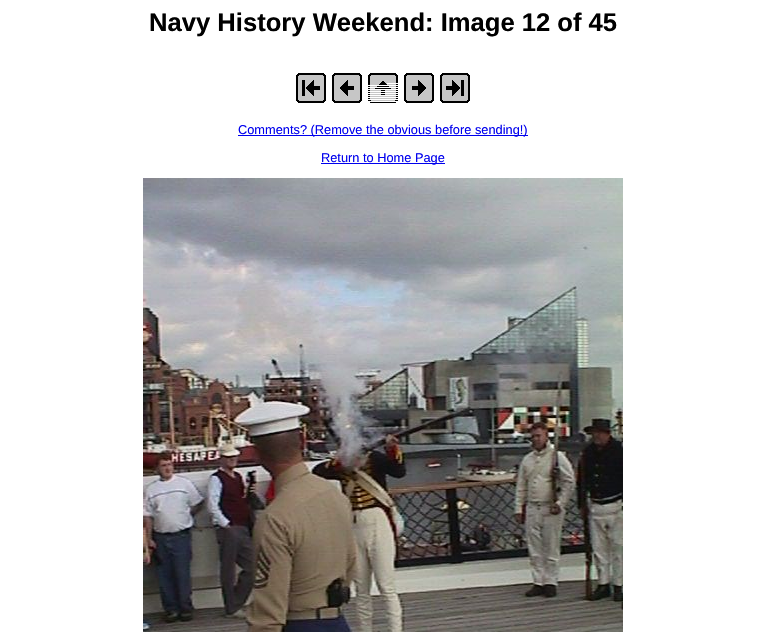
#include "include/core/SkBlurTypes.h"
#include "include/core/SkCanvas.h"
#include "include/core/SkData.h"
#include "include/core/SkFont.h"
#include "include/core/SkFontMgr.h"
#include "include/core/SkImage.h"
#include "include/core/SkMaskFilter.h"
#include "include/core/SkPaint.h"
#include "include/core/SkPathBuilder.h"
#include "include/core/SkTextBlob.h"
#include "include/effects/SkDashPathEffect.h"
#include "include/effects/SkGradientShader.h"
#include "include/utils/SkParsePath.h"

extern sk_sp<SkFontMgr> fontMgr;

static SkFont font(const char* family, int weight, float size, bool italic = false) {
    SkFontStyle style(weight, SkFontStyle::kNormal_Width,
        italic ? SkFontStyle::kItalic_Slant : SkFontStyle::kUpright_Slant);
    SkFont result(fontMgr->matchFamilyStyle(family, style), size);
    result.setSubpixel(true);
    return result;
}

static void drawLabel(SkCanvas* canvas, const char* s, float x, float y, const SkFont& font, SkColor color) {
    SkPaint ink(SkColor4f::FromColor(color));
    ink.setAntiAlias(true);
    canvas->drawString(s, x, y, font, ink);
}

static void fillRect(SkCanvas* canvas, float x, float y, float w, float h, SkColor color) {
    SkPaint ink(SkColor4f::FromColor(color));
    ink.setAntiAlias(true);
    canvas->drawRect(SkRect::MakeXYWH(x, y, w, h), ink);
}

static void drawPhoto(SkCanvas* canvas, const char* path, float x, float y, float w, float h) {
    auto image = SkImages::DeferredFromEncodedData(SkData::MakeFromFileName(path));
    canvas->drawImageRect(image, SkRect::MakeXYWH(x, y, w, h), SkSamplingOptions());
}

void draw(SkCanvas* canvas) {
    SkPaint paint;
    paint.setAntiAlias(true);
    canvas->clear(0xFFFFFFFF);
    SkFont font1 = font("Liberation Sans", 700, 25.6f);
    drawLabel(canvas, "Navy History Weekend: Image 12 of 45", 149, 31, font1, 0xFF000000);
    drawPhoto(canvas, "assets/img1.png", 296, 73, 30, 30);
    drawPhoto(canvas, "assets/img2.png", 332, 73, 30, 30);
    drawPhoto(canvas, "assets/img3.png", 368, 73, 30, 30);
    drawPhoto(canvas, "assets/img4.png", 404, 73, 30, 30);
    drawPhoto(canvas, "assets/img5.png", 440, 73, 30, 30);
    fillRect(canvas, 238, 135, 290, 1, 0xFF0000EE);
    SkFont font2 = font("Liberation Sans", 400, 12.8f);
    drawLabel(canvas, "Comments? (Remove the obvious before sending!)", 238, 134, font2, 0xFF0000EE);
    fillRect(canvas, 321, 163, 124, 1, 0xFF0000EE);
    drawLabel(canvas, "Return to Home Page", 321, 162, font2, 0xFF0000EE);
    drawPhoto(canvas, "assets/img6.png", 143, 178, 480, 454);
}
